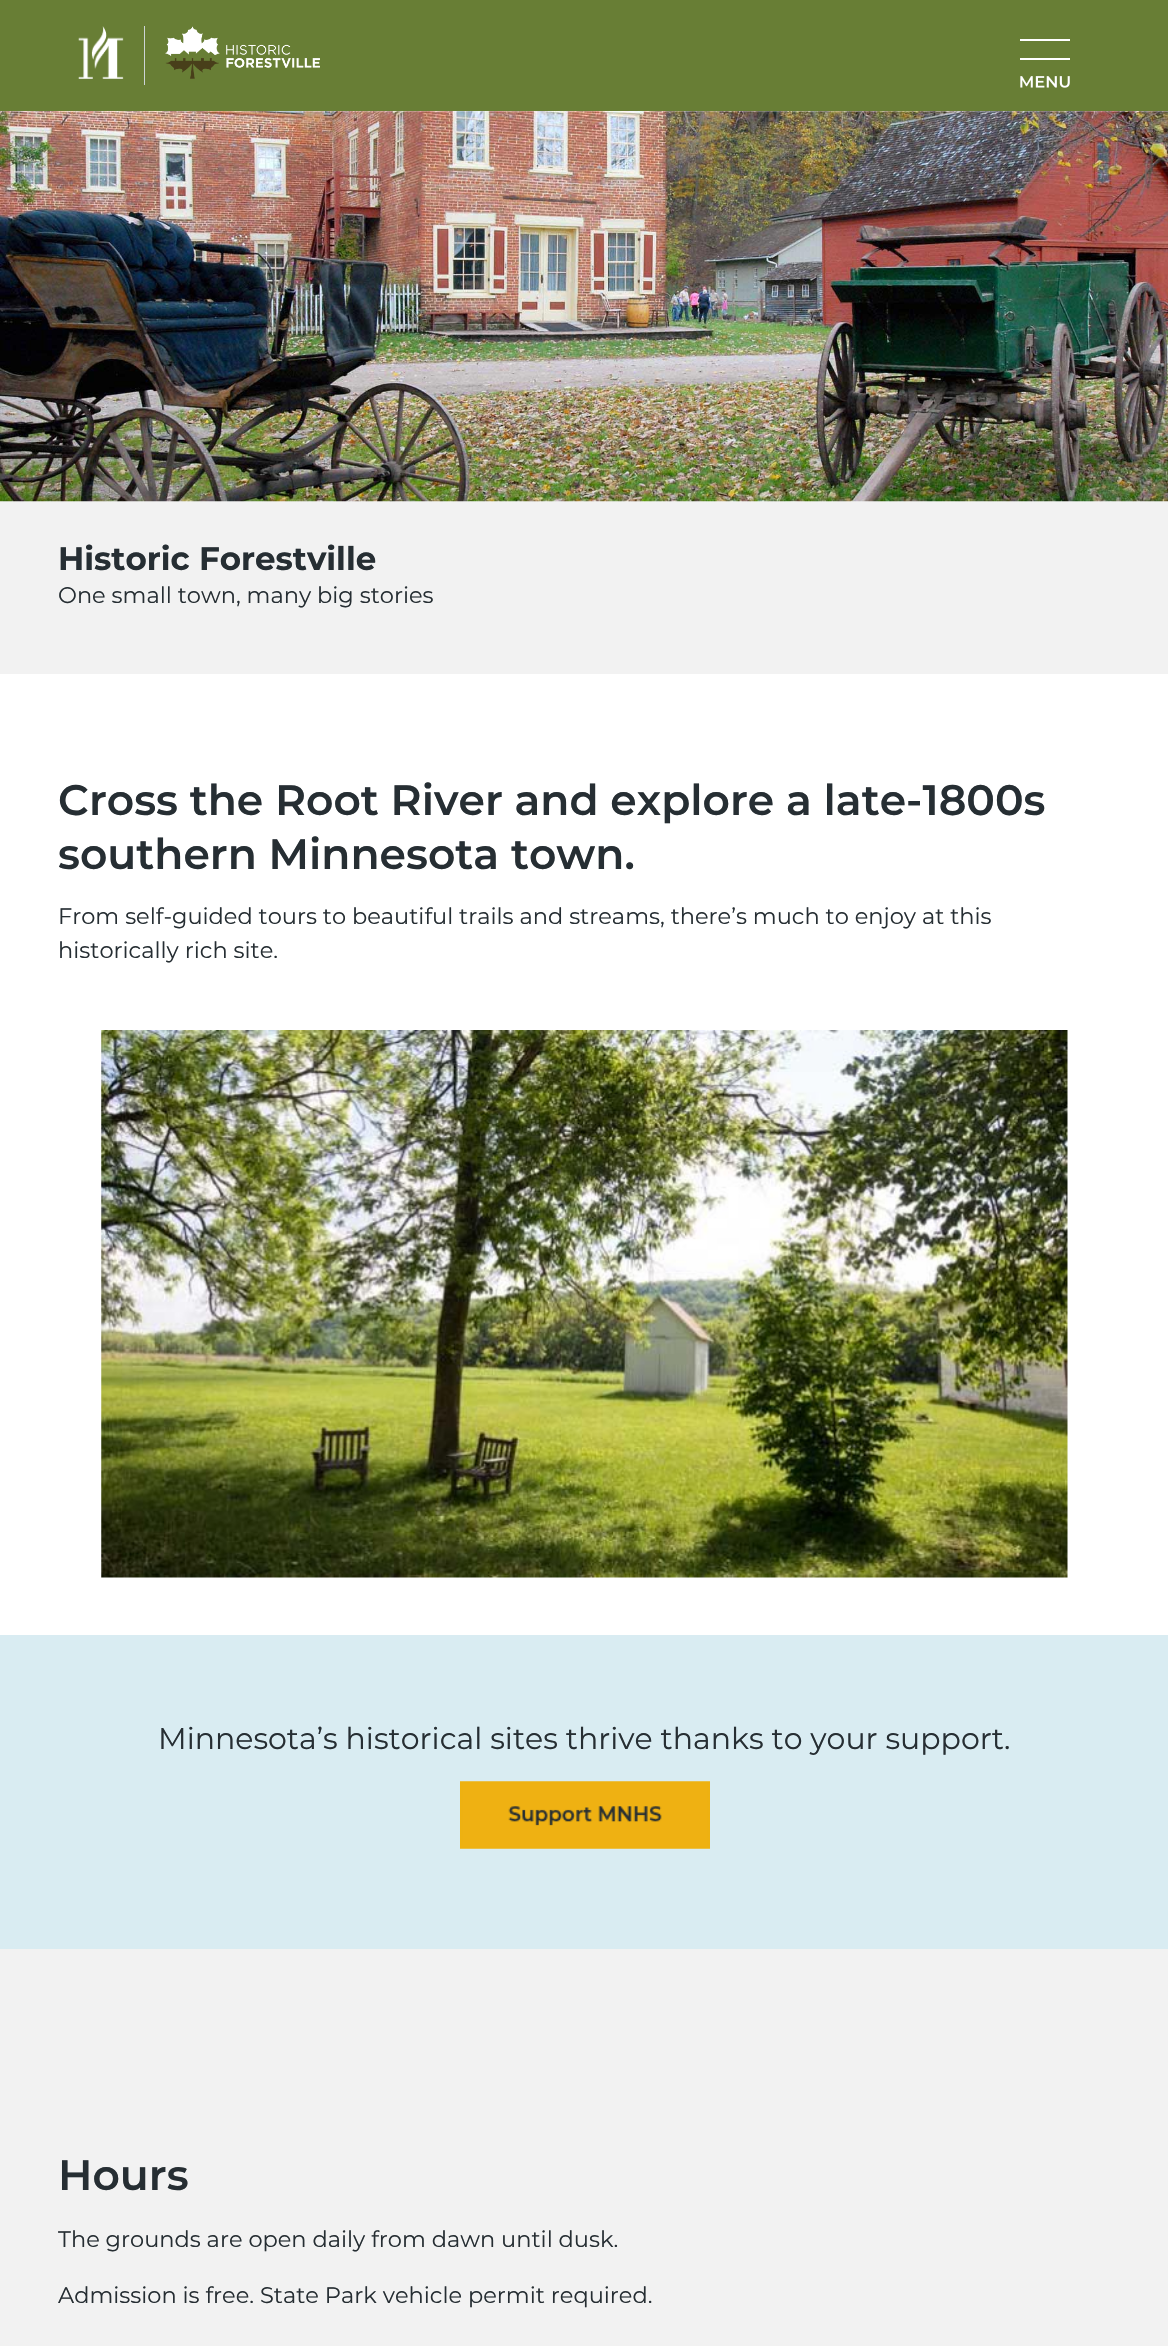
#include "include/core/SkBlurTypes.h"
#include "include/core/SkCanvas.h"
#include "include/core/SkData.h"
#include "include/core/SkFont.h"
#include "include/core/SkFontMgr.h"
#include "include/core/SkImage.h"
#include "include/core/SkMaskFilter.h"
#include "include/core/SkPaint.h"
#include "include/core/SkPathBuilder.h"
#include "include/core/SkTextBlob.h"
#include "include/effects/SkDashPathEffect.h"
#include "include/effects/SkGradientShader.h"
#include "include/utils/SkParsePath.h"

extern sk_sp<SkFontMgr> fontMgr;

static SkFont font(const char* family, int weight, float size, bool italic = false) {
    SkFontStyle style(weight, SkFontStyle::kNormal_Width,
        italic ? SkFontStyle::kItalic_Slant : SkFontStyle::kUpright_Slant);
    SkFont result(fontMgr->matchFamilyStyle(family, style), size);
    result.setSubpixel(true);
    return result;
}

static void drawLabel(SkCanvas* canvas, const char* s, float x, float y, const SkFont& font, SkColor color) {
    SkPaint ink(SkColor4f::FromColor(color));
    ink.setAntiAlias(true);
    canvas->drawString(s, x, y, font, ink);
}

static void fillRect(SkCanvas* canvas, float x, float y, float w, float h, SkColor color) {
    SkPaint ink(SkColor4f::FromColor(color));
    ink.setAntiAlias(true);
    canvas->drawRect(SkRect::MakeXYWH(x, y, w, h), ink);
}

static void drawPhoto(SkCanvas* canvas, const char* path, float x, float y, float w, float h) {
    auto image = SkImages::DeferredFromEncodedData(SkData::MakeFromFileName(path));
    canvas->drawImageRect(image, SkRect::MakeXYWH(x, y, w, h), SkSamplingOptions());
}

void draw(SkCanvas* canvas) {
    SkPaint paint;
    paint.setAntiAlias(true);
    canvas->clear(0xFFFFFFFF);
    fillRect(canvas, 0, 0, 1168, 111, 0xFF687E35);
    fillRect(canvas, 144, 26, 1, 59, 0xFFCDD4D7);
    drawPhoto(canvas, "assets/img1.png", 78, 26, 46, 53);
    drawPhoto(canvas, "assets/img2.png", 165, 26, 155, 53);
    drawPhoto(canvas, "assets/img3.png", 1020, 39, 50, 49);
    fillRect(canvas, 0, 501, 1168, 173, 0xFFF2F2F2);
    drawPhoto(canvas, "assets/img4.png", 0, 111, 1168, 391);
    SkFont font1 = font("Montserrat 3", 100, 32.5f);
    drawLabel(canvas, "Historic Forestville", 58, 570, font1, 0xFF262E33);
    SkFont font2 = font("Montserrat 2", 100, 22.5f);
    drawLabel(canvas, "One small town, many big stories", 58, 603, font2, 0xFF262E33);
    SkFont font3 = font("Montserrat", 100, 42.5f);
    drawLabel(canvas, "Cross the Root River and explore a late-1800s", 58, 815, font3, 0xFF262E33);
    drawLabel(canvas, "southern Minnesota town.", 58, 869, font3, 0xFF262E33);
    drawLabel(canvas, "From self-guided tours to beautiful trails and streams, there’s much to enjoy at this", 58, 924, font2, 0xFF262E33);
    drawLabel(canvas, "historically rich site.", 58, 958, font2, 0xFF262E33);
    drawPhoto(canvas, "assets/img5.png", 101, 1030, 967, 548);
    fillRect(canvas, 0, 1635, 1168, 314, 0xFFD9ECF2);
    SkFont font4 = font("Montserrat 2", 100, 30);
    drawLabel(canvas, "Minnesota’s historical sites thrive thanks to your support.", 158, 1749, font4, 0xFF262E33);
    drawPhoto(canvas, "assets/img6.png", 460, 1781, 250, 68);
    fillRect(canvas, 0, 1949, 1168, 397, 0xFFF2F2F2);
    drawLabel(canvas, "Hours", 58, 2190, font3, 0xFF262E33);
    drawLabel(canvas, "The grounds are open daily from dawn until dusk.", 58, 2247, font2, 0xFF262E33);
    drawLabel(canvas, "Admission is free. State Park vehicle permit required.", 58, 2303, font2, 0xFF262E33);
}
